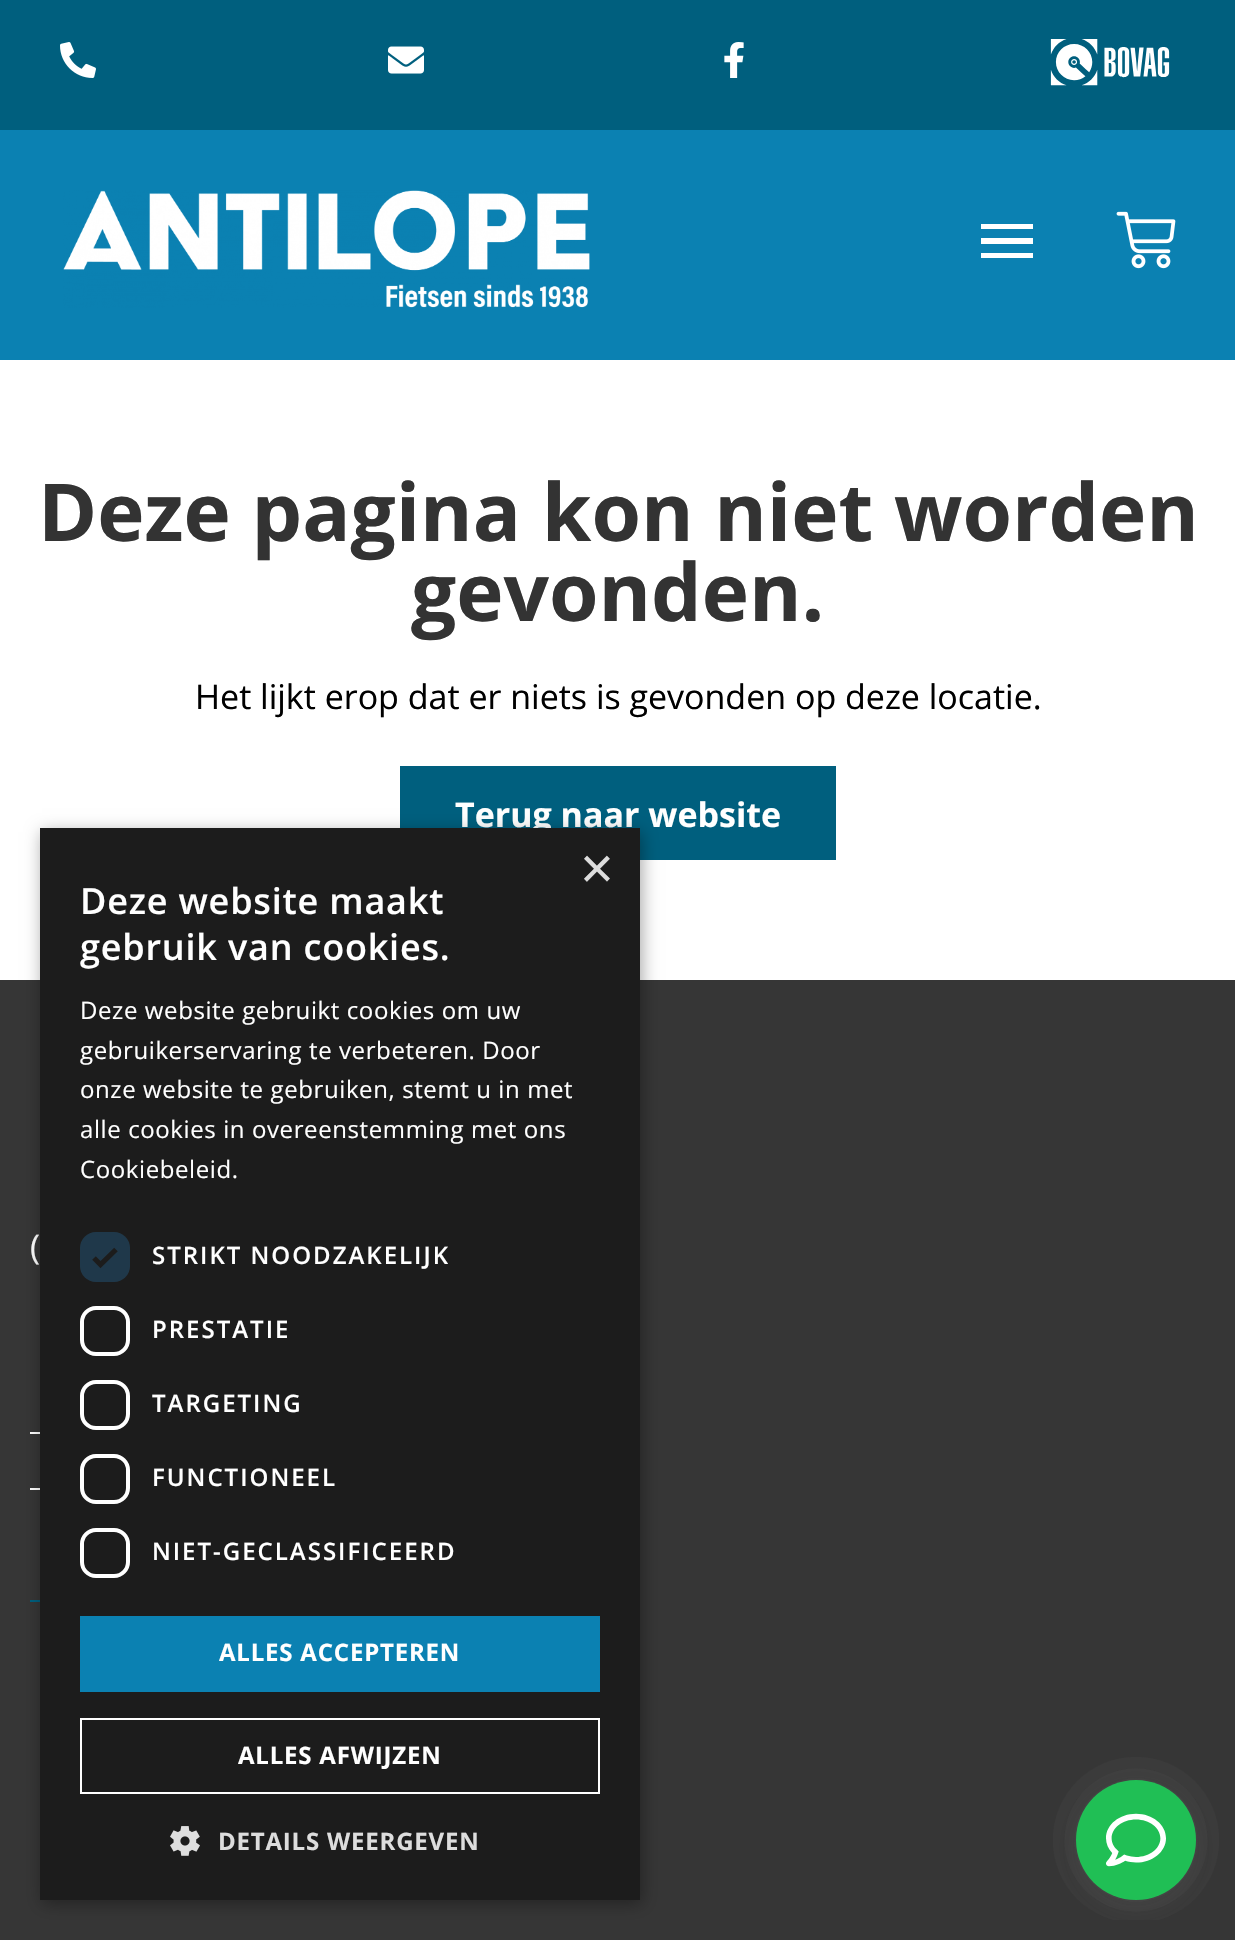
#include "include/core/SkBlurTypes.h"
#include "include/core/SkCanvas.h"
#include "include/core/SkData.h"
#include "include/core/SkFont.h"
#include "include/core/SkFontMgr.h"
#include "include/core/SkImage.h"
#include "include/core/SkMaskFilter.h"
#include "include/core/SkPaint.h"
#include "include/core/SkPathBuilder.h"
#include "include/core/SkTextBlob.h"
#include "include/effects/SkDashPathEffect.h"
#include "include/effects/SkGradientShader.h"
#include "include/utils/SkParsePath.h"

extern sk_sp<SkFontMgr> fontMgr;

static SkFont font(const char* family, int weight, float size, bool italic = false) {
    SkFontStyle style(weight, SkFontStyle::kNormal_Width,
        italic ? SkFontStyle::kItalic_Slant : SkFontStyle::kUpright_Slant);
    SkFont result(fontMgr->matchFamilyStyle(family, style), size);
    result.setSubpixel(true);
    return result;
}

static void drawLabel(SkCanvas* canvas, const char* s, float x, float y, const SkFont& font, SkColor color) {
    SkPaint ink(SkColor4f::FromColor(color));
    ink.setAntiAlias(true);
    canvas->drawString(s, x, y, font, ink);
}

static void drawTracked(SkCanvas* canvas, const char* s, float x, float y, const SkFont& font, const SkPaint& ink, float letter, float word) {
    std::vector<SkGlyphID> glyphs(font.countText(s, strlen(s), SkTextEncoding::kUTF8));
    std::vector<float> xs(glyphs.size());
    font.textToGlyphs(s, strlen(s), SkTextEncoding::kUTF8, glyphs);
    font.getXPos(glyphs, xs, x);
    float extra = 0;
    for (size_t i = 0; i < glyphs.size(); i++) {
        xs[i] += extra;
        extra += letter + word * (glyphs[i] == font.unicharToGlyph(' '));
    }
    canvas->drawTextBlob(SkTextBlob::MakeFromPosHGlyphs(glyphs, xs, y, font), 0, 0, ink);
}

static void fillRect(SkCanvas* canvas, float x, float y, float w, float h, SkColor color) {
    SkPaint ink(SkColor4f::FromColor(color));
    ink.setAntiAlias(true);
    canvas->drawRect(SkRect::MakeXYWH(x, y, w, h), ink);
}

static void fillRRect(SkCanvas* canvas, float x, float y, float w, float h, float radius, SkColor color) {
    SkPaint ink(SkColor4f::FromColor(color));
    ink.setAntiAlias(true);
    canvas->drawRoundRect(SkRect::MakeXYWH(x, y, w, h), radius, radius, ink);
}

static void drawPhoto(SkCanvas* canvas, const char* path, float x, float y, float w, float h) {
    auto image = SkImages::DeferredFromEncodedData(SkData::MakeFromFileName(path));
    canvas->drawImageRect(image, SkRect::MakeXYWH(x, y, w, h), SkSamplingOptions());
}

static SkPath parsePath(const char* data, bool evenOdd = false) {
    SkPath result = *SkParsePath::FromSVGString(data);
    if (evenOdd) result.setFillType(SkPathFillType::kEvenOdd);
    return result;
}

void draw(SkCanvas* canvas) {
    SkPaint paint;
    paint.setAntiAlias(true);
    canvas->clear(0xFFFFFFFF);
    fillRect(canvas, 0, 0, 1235, 130, 0xFF005F7E);
    drawPhoto(canvas, "assets/img1.png", 60, 42, 36, 36);
    drawPhoto(canvas, "assets/img2.png", 388, 46, 36, 28);
    drawPhoto(canvas, "assets/img3.png", 724, 42, 20, 36);
    drawPhoto(canvas, "assets/img4.png", 1050, 39, 120, 47);
    fillRect(canvas, 0, 130, 1235, 230, 0xFF0B81B2);
    drawPhoto(canvas, "assets/img5.png", 63, 190, 527, 118);
    paint.setColor(0xFFFFFFFF);
    canvas->drawPath(parsePath("M981 258H1033V253H981ZM981 244H1033V238H981ZM981 224V229H1033V224Z"), paint);
    drawPhoto(canvas, "assets/img6.png", 1116, 211, 60, 58);
    SkFont font1 = font("Open Sans", 700, 80);
    drawLabel(canvas, "Deze pagina kon niet worden", 38, 541, font1, 0xFF333333);
    drawLabel(canvas, "gevonden.", 411, 621, font1, 0xFF333333);
    SkFont font2 = font("Open Sans", 400, 34);
    drawLabel(canvas, "Het lijkt erop dat er niets is gevonden op deze locatie.", 195, 709, font2, 0xFF000000);
    fillRect(canvas, 400, 766, 436, 94, 0xFF005F7E);
    SkFont font3 = font("Open Sans", 700, 34);
    drawLabel(canvas, "Terug naar website", 455, 827, font3, 0xFFFFFFFF);
    fillRect(canvas, 0, 980, 1235, 960, 0xFF363636);
    drawLabel(canvas, "(", 30, 1259, font2, 0xFFFFFFFF);
    fillRect(canvas, 30, 1432, 10, 2, 0xFFFFFFFF);
    fillRect(canvas, 30, 1488, 10, 2, 0xFFFFFFFF);
    fillRect(canvas, 30, 1600, 10, 2, 0xFF005F7E);
    paint.setColor(0x59000000);
    paint.setMaskFilter(SkMaskFilter::MakeBlur(kNormal_SkBlurStyle, 8));
    canvas->drawRect(SkRect::MakeXYWH(42, 832, 600, 1072), paint);
    paint.setMaskFilter(nullptr);
    fillRect(canvas, 40, 828, 600, 1072, 0xFF1C1C1C);
    SkFont font4 = font("Liberation Sans", 400, 58);
    drawLabel(canvas, "×", 580, 888, font4, 0xFFDDDDDD);
    SkFont font5 = font("Open Sans", 600, 36);
    paint.setColor(0xFFFFFFFF);
    drawTracked(canvas, "Deze website maakt", 80, 914, font5, paint, 0.8f, 0);
    drawTracked(canvas, "gebruik van cookies.", 80, 960, font5, paint, 0.8f, 0);
    SkFont font6 = font("Open Sans", 400, 24);
    drawTracked(canvas, "Deze website gebruikt cookies om uw", 80, 1019, font6, paint, 0.6f, 0);
    drawTracked(canvas, "gebruikerservaring te verbeteren. Door", 80, 1059, font6, paint, 0.6f, 0);
    drawTracked(canvas, "onze website te gebruiken, stemt u in met", 80, 1098, font6, paint, 0.6f, 0);
    drawTracked(canvas, "alle cookies in overeenstemming met ons", 80, 1138, font6, paint, 0.6f, 0);
    drawTracked(canvas, "Cookiebeleid.", 80, 1178, font6, paint, 0.6f, 0);
    fillRRect(canvas, 80, 1232, 50, 50, 16, 0xFF1F384A);
    paint.setStroke(true);
    paint.setStrokeWidth(5.2f);
    paint.setColor(0xFF1C1C1C);
    canvas->drawPath(parsePath("M94 1258L100.5 1264.5L116 1249.5"), paint);
    SkFont font7 = font("Open Sans", 600, 24);
    paint.setStroke(false);
    paint.setColor(0xFFFFFFFF);
    drawTracked(canvas, "STRIKT NOODZAKELIJK", 152, 1264, font7, paint, 2, 0);
    paint.setStroke(true);
    paint.setStrokeWidth(4);
    canvas->drawRoundRect(SkRect::MakeXYWH(82, 1308, 46, 46), 14, 14, paint);
    paint.setStroke(false);
    drawTracked(canvas, "PRESTATIE", 152, 1338, font7, paint, 2, 0);
    paint.setStroke(true);
    canvas->drawRoundRect(SkRect::MakeXYWH(82, 1382, 46, 46), 14, 14, paint);
    paint.setStroke(false);
    drawTracked(canvas, "TARGETING", 152, 1412, font7, paint, 2, 0);
    paint.setStroke(true);
    canvas->drawRoundRect(SkRect::MakeXYWH(82, 1456, 46, 46), 14, 14, paint);
    paint.setStroke(false);
    drawTracked(canvas, "FUNCTIONEEL", 152, 1486, font7, paint, 2, 0);
    paint.setStroke(true);
    canvas->drawRoundRect(SkRect::MakeXYWH(82, 1530, 46, 46), 14, 14, paint);
    paint.setStroke(false);
    drawTracked(canvas, "NIET-GECLASSIFICEERD", 152, 1560, font7, paint, 2, 0);
    fillRect(canvas, 80, 1616, 520, 76, 0xFF0B81B2);
    SkFont font8 = font("Open Sans", 700, 24);
    drawTracked(canvas, "ALLES ACCEPTEREN", 219, 1661, font8, paint, 0.8f, 0);
    paint.setStroke(true);
    paint.setStrokeWidth(2);
    canvas->drawRect(SkRect::MakeXYWH(81, 1719, 518, 74), paint);
    paint.setStroke(false);
    drawTracked(canvas, "ALLES AFWIJZEN", 238, 1764, font8, paint, 0.8f, 0);
    drawPhoto(canvas, "assets/img7.png", 170, 1826, 30, 30);
    paint.setColor(0xFFDDDDDD);
    drawTracked(canvas, "DETAILS WEERGEVEN", 218, 1850, font8, paint, 0.8f, 0);
    drawPhoto(canvas, "assets/img8.png", 1053, 1757, 166, 163);
}
